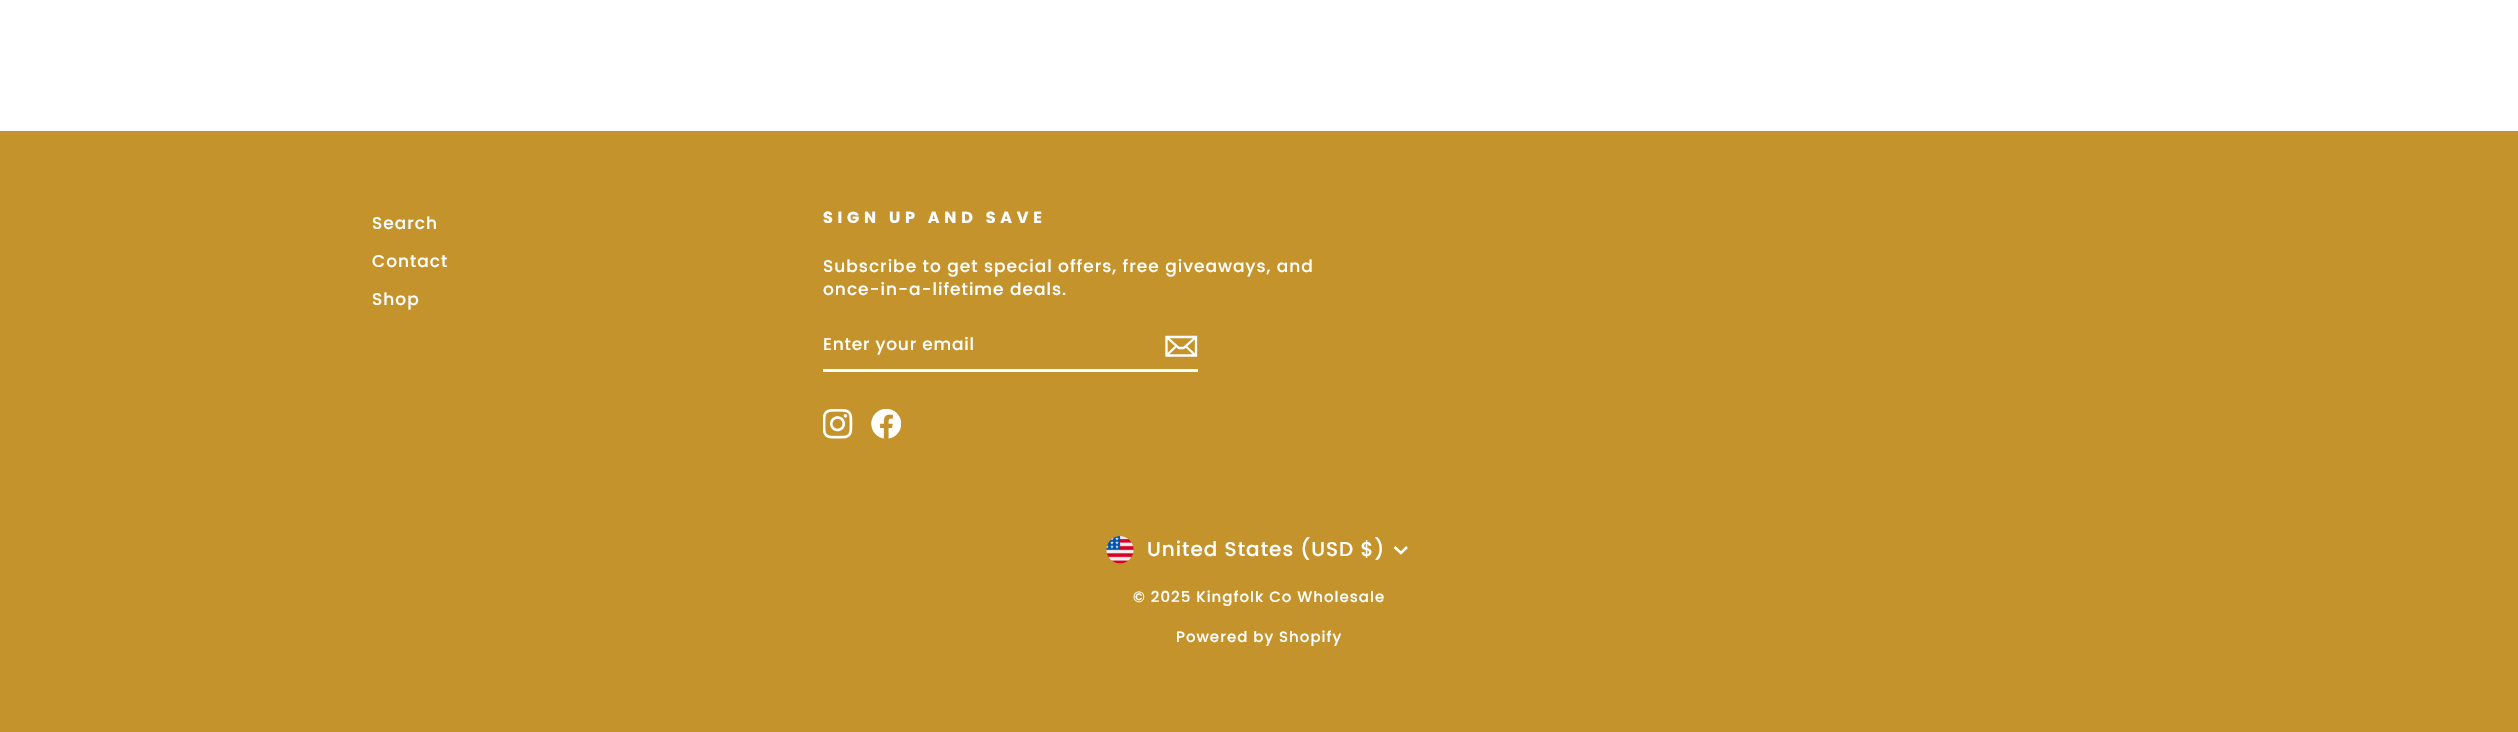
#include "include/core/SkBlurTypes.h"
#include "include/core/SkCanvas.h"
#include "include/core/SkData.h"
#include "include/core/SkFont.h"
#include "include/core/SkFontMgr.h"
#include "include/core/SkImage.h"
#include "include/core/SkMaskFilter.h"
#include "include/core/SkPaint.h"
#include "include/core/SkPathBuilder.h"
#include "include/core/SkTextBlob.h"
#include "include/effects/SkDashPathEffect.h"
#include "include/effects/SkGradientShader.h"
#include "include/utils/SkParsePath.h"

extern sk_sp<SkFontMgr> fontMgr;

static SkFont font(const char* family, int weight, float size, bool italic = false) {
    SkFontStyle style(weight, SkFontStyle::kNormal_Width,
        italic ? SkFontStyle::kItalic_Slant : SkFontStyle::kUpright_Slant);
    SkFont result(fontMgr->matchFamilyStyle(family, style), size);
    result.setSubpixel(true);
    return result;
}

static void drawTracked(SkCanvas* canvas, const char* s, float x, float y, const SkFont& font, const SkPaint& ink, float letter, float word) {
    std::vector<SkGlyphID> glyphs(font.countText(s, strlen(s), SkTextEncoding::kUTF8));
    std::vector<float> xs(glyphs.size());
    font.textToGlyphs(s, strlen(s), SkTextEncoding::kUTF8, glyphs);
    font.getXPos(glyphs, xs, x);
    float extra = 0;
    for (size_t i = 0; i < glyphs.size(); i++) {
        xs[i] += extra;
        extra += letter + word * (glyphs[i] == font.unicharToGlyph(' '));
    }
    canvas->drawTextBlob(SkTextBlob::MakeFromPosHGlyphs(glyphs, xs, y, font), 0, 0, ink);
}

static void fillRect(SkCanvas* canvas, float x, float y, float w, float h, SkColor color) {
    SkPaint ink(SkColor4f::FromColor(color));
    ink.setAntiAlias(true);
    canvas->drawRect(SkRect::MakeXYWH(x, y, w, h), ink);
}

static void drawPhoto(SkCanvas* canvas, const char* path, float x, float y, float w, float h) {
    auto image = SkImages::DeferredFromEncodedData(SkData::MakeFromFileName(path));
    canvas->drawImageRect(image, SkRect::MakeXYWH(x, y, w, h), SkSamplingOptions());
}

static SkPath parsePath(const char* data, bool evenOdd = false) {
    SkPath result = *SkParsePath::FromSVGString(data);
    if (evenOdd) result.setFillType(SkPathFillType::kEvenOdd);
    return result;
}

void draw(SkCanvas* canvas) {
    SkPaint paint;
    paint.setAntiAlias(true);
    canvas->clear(0xFFFFFFFF);
    fillRect(canvas, 0, 131, 2518, 601, 0xFFC4932C);
    SkFont font1 = font("Poppins", 500, 17);
    paint.setColor(0xFFFFFFFF);
    drawTracked(canvas, "Search", 372, 229, font1, paint, 1, 0);
    drawTracked(canvas, "Contact", 372, 267, font1, paint, 1, 0);
    drawTracked(canvas, "Shop", 372, 305, font1, paint, 1, 0);
    SkFont font2 = font("Poppins", 700, 16);
    drawTracked(canvas, "SIGN UP AND SAVE", 823, 223, font2, paint, 4.75f, 0);
    drawTracked(canvas, "Subscribe to get special offers, free giveaways, and", 823, 272, font1, paint, 1, 0);
    drawTracked(canvas, "once-in-a-lifetime deals.", 823, 295, font1, paint, 1, 0);
    fillRect(canvas, 823, 369, 375, 3, 0xFFFFFFFF);
    drawTracked(canvas, "Enter your email", 823, 350, font1, paint, 0.8f, 0);
    paint.setStroke(true);
    paint.setStrokeWidth(2.3f);
    canvas->drawPath(parsePath("M1196 355.5H1166.5V337H1196ZM1166.5 337L1179 348H1183.5L1196 337M1176.5 346L1167 355M1195.5 355.5L1185.5 346"), paint);
    drawPhoto(canvas, "assets/img1.png", 823, 409, 30, 30);
    drawPhoto(canvas, "assets/img2.png", 871, 409, 30, 30);
    drawPhoto(canvas, "assets/img3.png", 1106, 536, 28, 28);
    SkFont font3 = font("Poppins", 500, 20);
    paint.setStroke(false);
    drawTracked(canvas, "United States (USD $)", 1147, 556, font3, paint, 1, 0);
    paint.setStroke(true);
    paint.setStrokeWidth(2.5f);
    canvas->drawPath(parsePath("M1394.5 547L1401 553L1407 547"), paint);
    SkFont font4 = font("Poppins", 500, 15);
    paint.setStroke(false);
    drawTracked(canvas, "© 2025 Kingfolk Co Wholesale", 1133, 602, font4, paint, 1, 0);
    drawTracked(canvas, "Powered by Shopify", 1176, 642, font4, paint, 1, 0);
}
